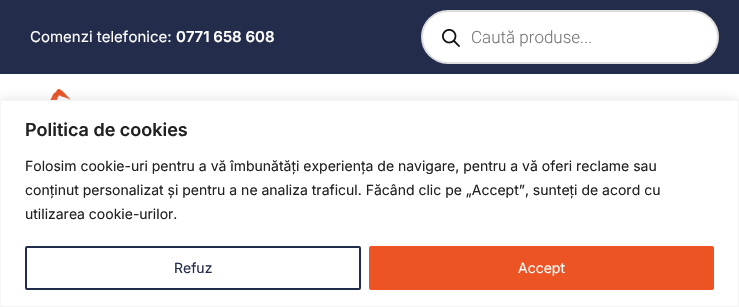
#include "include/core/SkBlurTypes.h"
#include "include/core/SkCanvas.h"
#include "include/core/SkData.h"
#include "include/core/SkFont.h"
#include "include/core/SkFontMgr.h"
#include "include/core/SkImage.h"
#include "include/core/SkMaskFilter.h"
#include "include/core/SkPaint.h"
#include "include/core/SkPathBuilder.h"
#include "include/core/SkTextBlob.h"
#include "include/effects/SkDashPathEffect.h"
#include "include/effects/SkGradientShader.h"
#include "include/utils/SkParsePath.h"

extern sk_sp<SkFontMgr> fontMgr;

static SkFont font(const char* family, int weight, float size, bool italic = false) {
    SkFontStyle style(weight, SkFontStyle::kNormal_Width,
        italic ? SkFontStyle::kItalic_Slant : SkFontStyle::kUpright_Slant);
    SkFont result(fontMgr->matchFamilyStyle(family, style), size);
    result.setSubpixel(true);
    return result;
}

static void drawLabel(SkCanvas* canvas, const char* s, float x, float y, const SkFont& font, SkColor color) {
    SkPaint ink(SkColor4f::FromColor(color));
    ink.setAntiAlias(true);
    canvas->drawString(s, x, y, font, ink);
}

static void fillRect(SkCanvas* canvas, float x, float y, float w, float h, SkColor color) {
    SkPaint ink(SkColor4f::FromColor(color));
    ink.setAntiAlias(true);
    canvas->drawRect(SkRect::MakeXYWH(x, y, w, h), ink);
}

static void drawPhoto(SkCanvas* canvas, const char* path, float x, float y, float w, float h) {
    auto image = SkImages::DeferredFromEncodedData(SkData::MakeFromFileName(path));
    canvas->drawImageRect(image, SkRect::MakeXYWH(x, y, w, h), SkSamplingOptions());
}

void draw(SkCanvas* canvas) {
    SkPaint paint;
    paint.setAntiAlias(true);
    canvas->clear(0xFFFFFFFF);
    fillRect(canvas, 0, 0, 739, 74, 0xFF242C4C);
    SkFont font1 = font("Inter", 400, 15);
    drawLabel(canvas, "Comenzi telefonice:", 30, 42, font1, 0xFFFFFFFF);
    SkFont font2 = font("Inter", 600, 15);
    drawLabel(canvas, "0771 658 608", 176, 42, font2, 0xFFFFFFFF);
    paint.setColor(0xFFFFFFFF);
    canvas->drawRoundRect(SkRect::MakeXYWH(422, 11, 296, 52), 26, 26, paint);
    paint.setStroke(true);
    paint.setStrokeWidth(2);
    paint.setColor(0xFFDDDDDD);
    canvas->drawRoundRect(SkRect::MakeXYWH(422, 11, 296, 52), 26, 26, paint);
    drawPhoto(canvas, "assets/img1.png", 442, 29, 18, 18);
    SkFont font3 = font("Roboto", 300, 17);
    drawLabel(canvas, "Caută produse...", 471, 43, font3, 0xFF777777);
    drawPhoto(canvas, "assets/img2.png", 50, 89, 21, 11);
    paint.setStroke(false);
    paint.setColor(0x4DACABAB);
    paint.setMaskFilter(SkMaskFilter::MakeBlur(kNormal_SkBlurStyle, 5));
    canvas->drawRect(SkRect::MakeXYWH(0, 99, 739, 207), paint);
    paint.setMaskFilter(nullptr);
    paint.setColor(0xFFFFFFFF);
    canvas->drawRect(SkRect::MakeXYWH(0.5f, 100.5f, 738, 206), paint);
    paint.setStroke(true);
    paint.setStrokeWidth(1);
    paint.setColor(0xFFF4F4F4);
    canvas->drawRect(SkRect::MakeXYWH(0.5f, 100.5f, 738, 206), paint);
    SkFont font4 = font("Inter", 600, 18);
    drawLabel(canvas, "Politica de cookies", 25, 136, font4, 0xFF212121);
    SkFont font5 = font("Inter", 400, 14);
    drawLabel(canvas, "Folosim cookie-uri pentru a vă îmbunătăți experiența de navigare, pentru a vă oferi reclame sau", 25, 171, font5, 0xFF212121);
    drawLabel(canvas, "conținut personalizat și pentru a ne analiza traficul. Făcând clic pe „Accept”, sunteți de acord cu", 25, 195, font5, 0xFF212121);
    drawLabel(canvas, "utilizarea cookie-urilor.", 25, 219, font5, 0xFF212121);
    paint.setStrokeWidth(2);
    paint.setColor(0xFF242C4C);
    canvas->drawRoundRect(SkRect::MakeXYWH(26, 247, 334, 42), 1, 1, paint);
    drawLabel(canvas, "Refuz", 174, 273, font5, 0xFF242C4C);
    paint.setStroke(false);
    paint.setColor(0xFFEC5424);
    canvas->drawRoundRect(SkRect::MakeXYWH(370, 247, 343, 42), 1, 1, paint);
    paint.setStroke(true);
    canvas->drawRoundRect(SkRect::MakeXYWH(370, 247, 343, 42), 1, 1, paint);
    drawLabel(canvas, "Accept", 518, 273, font5, 0xFFFFFFFF);
}
